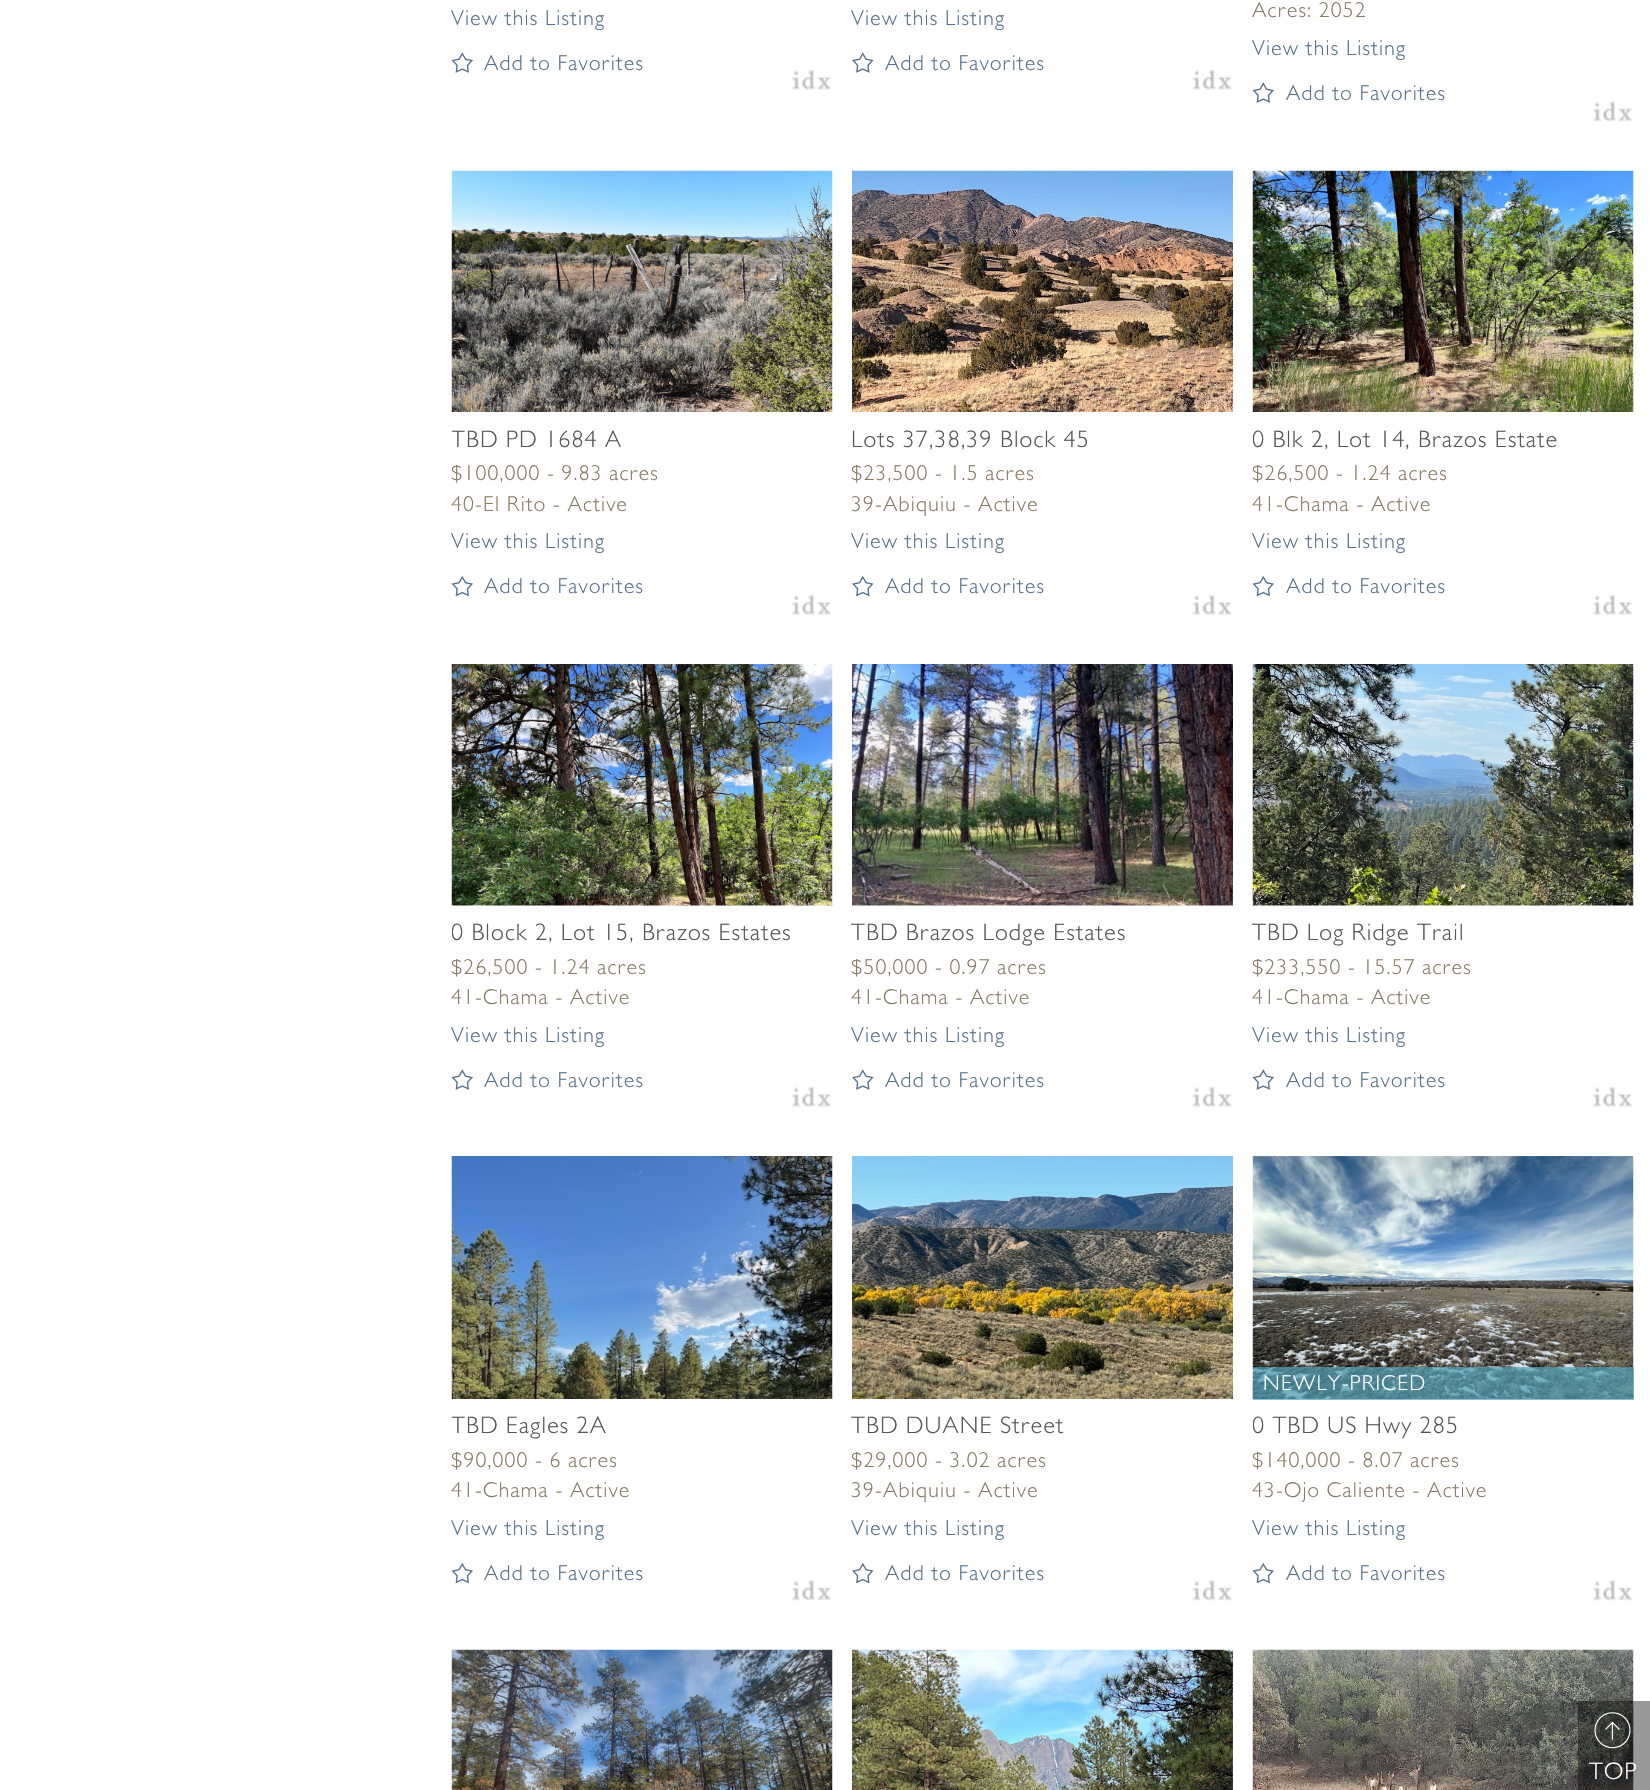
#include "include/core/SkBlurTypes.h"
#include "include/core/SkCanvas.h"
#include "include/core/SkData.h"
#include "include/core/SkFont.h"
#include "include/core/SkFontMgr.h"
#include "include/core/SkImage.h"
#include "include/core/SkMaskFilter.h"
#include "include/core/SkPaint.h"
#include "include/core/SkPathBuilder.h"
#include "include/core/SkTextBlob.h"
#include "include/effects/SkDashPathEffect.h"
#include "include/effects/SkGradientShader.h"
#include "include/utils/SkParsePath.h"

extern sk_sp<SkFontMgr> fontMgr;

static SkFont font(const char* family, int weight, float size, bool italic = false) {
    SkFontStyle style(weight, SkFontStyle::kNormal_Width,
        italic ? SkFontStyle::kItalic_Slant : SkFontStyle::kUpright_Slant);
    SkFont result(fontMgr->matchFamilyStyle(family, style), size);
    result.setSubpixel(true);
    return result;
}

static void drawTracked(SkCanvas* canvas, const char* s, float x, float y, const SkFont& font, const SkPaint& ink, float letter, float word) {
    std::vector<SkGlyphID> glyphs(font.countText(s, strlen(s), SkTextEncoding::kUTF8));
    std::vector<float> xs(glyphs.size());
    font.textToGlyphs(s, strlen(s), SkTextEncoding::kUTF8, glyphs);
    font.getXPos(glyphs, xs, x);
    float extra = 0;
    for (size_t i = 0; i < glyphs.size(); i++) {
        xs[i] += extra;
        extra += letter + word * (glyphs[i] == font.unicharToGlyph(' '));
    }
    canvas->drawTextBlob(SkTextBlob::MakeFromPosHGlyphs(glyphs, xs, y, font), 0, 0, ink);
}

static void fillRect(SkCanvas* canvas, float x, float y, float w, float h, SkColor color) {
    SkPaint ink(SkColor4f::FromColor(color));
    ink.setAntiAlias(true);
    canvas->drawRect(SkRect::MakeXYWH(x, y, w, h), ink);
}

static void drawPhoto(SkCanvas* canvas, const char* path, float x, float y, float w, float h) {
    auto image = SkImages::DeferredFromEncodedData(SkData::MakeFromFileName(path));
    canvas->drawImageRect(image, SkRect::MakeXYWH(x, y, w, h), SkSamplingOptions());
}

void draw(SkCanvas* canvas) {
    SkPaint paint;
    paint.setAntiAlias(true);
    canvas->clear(0xFFFFFFFF);
    drawPhoto(canvas, "assets/img1.png", 792, 69, 39, 21);
    SkFont font1 = font("Gill Sans", 300, 21.6f);
    paint.setColor(0xFF556F8A);
    drawTracked(canvas, "View this Listing", 451, 25, font1, paint, 1.2f, 0);
    drawPhoto(canvas, "assets/img2.png", 451, 52, 22, 21);
    drawTracked(canvas, "Add to Favorites", 484, 70, font1, paint, 1.2f, 0);
    drawPhoto(canvas, "assets/img3.png", 1192, 69, 40, 21);
    drawTracked(canvas, "View this Listing", 851, 25, font1, paint, 1.2f, 0);
    drawPhoto(canvas, "assets/img4.png", 852, 52, 22, 21);
    drawTracked(canvas, "Add to Favorites", 885, 70, font1, paint, 1.2f, 0);
    drawPhoto(canvas, "assets/img5.png", 1593, 101, 39, 21);
    paint.setColor(0xFF887963);
    drawTracked(canvas, "Acres: 2052", 1252, 17, font1, paint, 1.2f, 0);
    paint.setColor(0xFF556F8A);
    drawTracked(canvas, "View this Listing", 1252, 55, font1, paint, 1.2f, 0);
    drawPhoto(canvas, "assets/img2.png", 1252, 82, 22, 21);
    drawTracked(canvas, "Add to Favorites", 1286, 100, font1, paint, 1.2f, 0);
    drawPhoto(canvas, "assets/img1.png", 792, 594, 39, 21);
    drawPhoto(canvas, "assets/img6.png", 451, 170, 382, 242);
    canvas->save();
    canvas->clipRect(SkRect::MakeXYWH(452, 425, 381, 33));
    SkFont font2 = font("Gill Sans", 300, 24);
    paint.setColor(0xFF555555);
    drawTracked(canvas, "TBD PD 1684 A", 451, 447, font2, paint, 1.2f, 0);
    canvas->restore();
    paint.setColor(0xFF887963);
    drawTracked(canvas, "$100,000 - 9.83 acres", 451, 480, font1, paint, 1.2f, 0);
    drawTracked(canvas, "40-El Rito - Active", 451, 511, font1, paint, 1.2f, 0);
    paint.setColor(0xFF556F8A);
    drawTracked(canvas, "View this Listing", 451, 548, font1, paint, 1.2f, 0);
    drawPhoto(canvas, "assets/img7.png", 451, 575, 22, 22);
    drawTracked(canvas, "Add to Favorites", 484, 593, font1, paint, 1.2f, 0);
    drawPhoto(canvas, "assets/img3.png", 1192, 594, 40, 21);
    drawPhoto(canvas, "assets/img8.png", 852, 170, 381, 242);
    paint.setColor(0xFF555555);
    drawTracked(canvas, "Lots 37,38,39 Block 45", 851, 447, font2, paint, 1.2f, 0);
    paint.setColor(0xFF887963);
    drawTracked(canvas, "$23,500 - 1.5 acres", 851, 480, font1, paint, 1.2f, 0);
    drawTracked(canvas, "39-Abiquiu - Active", 851, 511, font1, paint, 1.2f, 0);
    paint.setColor(0xFF556F8A);
    drawTracked(canvas, "View this Listing", 851, 548, font1, paint, 1.2f, 0);
    drawPhoto(canvas, "assets/img9.png", 852, 575, 22, 22);
    drawTracked(canvas, "Add to Favorites", 885, 593, font1, paint, 1.2f, 0);
    drawPhoto(canvas, "assets/img1.png", 1593, 594, 39, 21);
    drawPhoto(canvas, "assets/img10.png", 1252, 170, 382, 242);
    canvas->save();
    canvas->clipRect(SkRect::MakeXYWH(1253, 425, 381, 33));
    paint.setColor(0xFF555555);
    drawTracked(canvas, "0 Blk 2, Lot 14, Brazos Estate", 1252, 447, font2, paint, 1.2f, 0);
    canvas->restore();
    paint.setColor(0xFF887963);
    drawTracked(canvas, "$26,500 - 1.24 acres", 1252, 480, font1, paint, 1.2f, 0);
    drawTracked(canvas, "41-Chama - Active", 1252, 511, font1, paint, 1.2f, 0);
    paint.setColor(0xFF556F8A);
    drawTracked(canvas, "View this Listing", 1252, 548, font1, paint, 1.2f, 0);
    drawPhoto(canvas, "assets/img7.png", 1252, 575, 22, 22);
    drawTracked(canvas, "Add to Favorites", 1286, 593, font1, paint, 1.2f, 0);
    drawPhoto(canvas, "assets/img1.png", 792, 1086, 39, 21);
    drawPhoto(canvas, "assets/img11.png", 451, 664, 382, 242);
    canvas->save();
    canvas->clipRect(SkRect::MakeXYWH(452, 918, 381, 33));
    paint.setColor(0xFF555555);
    drawTracked(canvas, "0 Block 2, Lot 15, Brazos Estates", 451, 940, font2, paint, 1.2f, 0);
    canvas->restore();
    paint.setColor(0xFF887963);
    drawTracked(canvas, "$26,500 - 1.24 acres", 451, 974, font1, paint, 1.2f, 0);
    drawTracked(canvas, "41-Chama - Active", 451, 1004, font1, paint, 1.2f, 0);
    paint.setColor(0xFF556F8A);
    drawTracked(canvas, "View this Listing", 451, 1042, font1, paint, 1.2f, 0);
    drawPhoto(canvas, "assets/img2.png", 451, 1069, 22, 21);
    drawTracked(canvas, "Add to Favorites", 484, 1087, font1, paint, 1.2f, 0);
    drawPhoto(canvas, "assets/img3.png", 1192, 1086, 40, 21);
    drawPhoto(canvas, "assets/img12.png", 852, 664, 381, 242);
    paint.setColor(0xFF555555);
    drawTracked(canvas, "TBD Brazos Lodge Estates", 851, 940, font2, paint, 1.2f, 0);
    paint.setColor(0xFF887963);
    drawTracked(canvas, "$50,000 - 0.97 acres", 851, 974, font1, paint, 1.2f, 0);
    drawTracked(canvas, "41-Chama - Active", 851, 1004, font1, paint, 1.2f, 0);
    paint.setColor(0xFF556F8A);
    drawTracked(canvas, "View this Listing", 851, 1042, font1, paint, 1.2f, 0);
    drawPhoto(canvas, "assets/img4.png", 852, 1069, 22, 21);
    drawTracked(canvas, "Add to Favorites", 885, 1087, font1, paint, 1.2f, 0);
    drawPhoto(canvas, "assets/img1.png", 1593, 1086, 39, 21);
    drawPhoto(canvas, "assets/img13.png", 1252, 664, 382, 242);
    paint.setColor(0xFF555555);
    drawTracked(canvas, "TBD Log Ridge Trail", 1252, 940, font2, paint, 1.2f, 0);
    paint.setColor(0xFF887963);
    drawTracked(canvas, "$233,550 - 15.57 acres", 1252, 974, font1, paint, 1.2f, 0);
    drawTracked(canvas, "41-Chama - Active", 1252, 1004, font1, paint, 1.2f, 0);
    paint.setColor(0xFF556F8A);
    drawTracked(canvas, "View this Listing", 1252, 1042, font1, paint, 1.2f, 0);
    drawPhoto(canvas, "assets/img2.png", 1252, 1069, 22, 21);
    drawTracked(canvas, "Add to Favorites", 1286, 1087, font1, paint, 1.2f, 0);
    drawPhoto(canvas, "assets/img5.png", 792, 1580, 39, 21);
    drawPhoto(canvas, "assets/img14.png", 451, 1156, 382, 243);
    canvas->save();
    canvas->clipRect(SkRect::MakeXYWH(452, 1412, 381, 33));
    paint.setColor(0xFF555555);
    drawTracked(canvas, "TBD Eagles 2A", 451, 1433, font2, paint, 1.2f, 0);
    canvas->restore();
    paint.setColor(0xFF887963);
    drawTracked(canvas, "$90,000 - 6 acres", 451, 1467, font1, paint, 1.2f, 0);
    drawTracked(canvas, "41-Chama - Active", 451, 1497, font1, paint, 1.2f, 0);
    paint.setColor(0xFF556F8A);
    drawTracked(canvas, "View this Listing", 451, 1535, font1, paint, 1.2f, 0);
    drawPhoto(canvas, "assets/img7.png", 451, 1562, 22, 22);
    drawTracked(canvas, "Add to Favorites", 484, 1580, font1, paint, 1.2f, 0);
    drawPhoto(canvas, "assets/img15.png", 1192, 1580, 40, 21);
    drawPhoto(canvas, "assets/img16.png", 852, 1156, 381, 243);
    paint.setColor(0xFF555555);
    drawTracked(canvas, "TBD DUANE Street", 851, 1433, font2, paint, 1.2f, 0);
    paint.setColor(0xFF887963);
    drawTracked(canvas, "$29,000 - 3.02 acres", 851, 1467, font1, paint, 1.2f, 0);
    drawTracked(canvas, "39-Abiquiu - Active", 851, 1497, font1, paint, 1.2f, 0);
    paint.setColor(0xFF556F8A);
    drawTracked(canvas, "View this Listing", 851, 1535, font1, paint, 1.2f, 0);
    drawPhoto(canvas, "assets/img9.png", 852, 1562, 22, 22);
    drawTracked(canvas, "Add to Favorites", 885, 1580, font1, paint, 1.2f, 0);
    drawPhoto(canvas, "assets/img5.png", 1593, 1580, 39, 21);
    drawPhoto(canvas, "assets/img17.png", 1252, 1156, 382, 243);
    fillRect(canvas, 1253, 1367, 381, 33, 0xB356A5BA);
    paint.setColor(0xFFFFFFFF);
    drawTracked(canvas, "NEWLY-PRICED", 1263, 1390, font1, paint, 1.2f, 0);
    canvas->save();
    canvas->clipRect(SkRect::MakeXYWH(1253, 1412, 381, 33));
    paint.setColor(0xFF555555);
    drawTracked(canvas, "0 TBD US Hwy 285", 1252, 1433, font2, paint, 1.2f, 0);
    canvas->restore();
    paint.setColor(0xFF887963);
    drawTracked(canvas, "$140,000 - 8.07 acres", 1252, 1467, font1, paint, 1.2f, 0);
    drawTracked(canvas, "43-Ojo Caliente - Active", 1252, 1497, font1, paint, 1.2f, 0);
    paint.setColor(0xFF556F8A);
    drawTracked(canvas, "View this Listing", 1252, 1535, font1, paint, 1.2f, 0);
    drawPhoto(canvas, "assets/img7.png", 1252, 1562, 22, 22);
    drawTracked(canvas, "Add to Favorites", 1286, 1580, font1, paint, 1.2f, 0);
    drawPhoto(canvas, "assets/img18.png", 451, 1649, 382, 141);
    drawPhoto(canvas, "assets/img19.png", 852, 1649, 381, 141);
    drawPhoto(canvas, "assets/img20.png", 1252, 1649, 382, 141);
    fillRect(canvas, 1578, 1701, 72, 89, 0x66000000);
    drawPhoto(canvas, "assets/img21.png", 1594, 1712, 37, 37);
    paint.setColor(0xFFFFFFFF);
    drawTracked(canvas, "TOP", 1589, 1779, font2, paint, 1.2f, 0);
}
